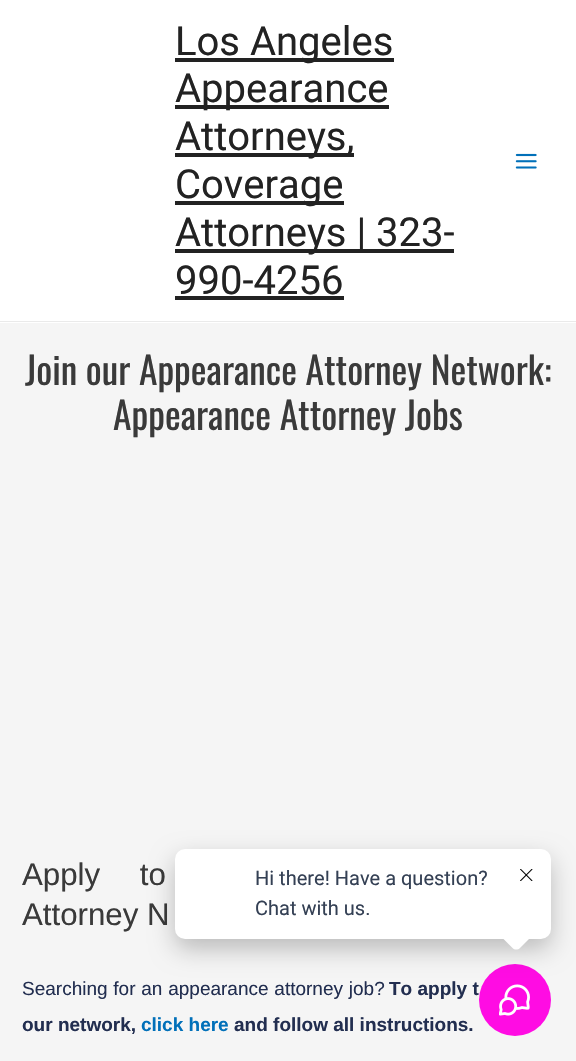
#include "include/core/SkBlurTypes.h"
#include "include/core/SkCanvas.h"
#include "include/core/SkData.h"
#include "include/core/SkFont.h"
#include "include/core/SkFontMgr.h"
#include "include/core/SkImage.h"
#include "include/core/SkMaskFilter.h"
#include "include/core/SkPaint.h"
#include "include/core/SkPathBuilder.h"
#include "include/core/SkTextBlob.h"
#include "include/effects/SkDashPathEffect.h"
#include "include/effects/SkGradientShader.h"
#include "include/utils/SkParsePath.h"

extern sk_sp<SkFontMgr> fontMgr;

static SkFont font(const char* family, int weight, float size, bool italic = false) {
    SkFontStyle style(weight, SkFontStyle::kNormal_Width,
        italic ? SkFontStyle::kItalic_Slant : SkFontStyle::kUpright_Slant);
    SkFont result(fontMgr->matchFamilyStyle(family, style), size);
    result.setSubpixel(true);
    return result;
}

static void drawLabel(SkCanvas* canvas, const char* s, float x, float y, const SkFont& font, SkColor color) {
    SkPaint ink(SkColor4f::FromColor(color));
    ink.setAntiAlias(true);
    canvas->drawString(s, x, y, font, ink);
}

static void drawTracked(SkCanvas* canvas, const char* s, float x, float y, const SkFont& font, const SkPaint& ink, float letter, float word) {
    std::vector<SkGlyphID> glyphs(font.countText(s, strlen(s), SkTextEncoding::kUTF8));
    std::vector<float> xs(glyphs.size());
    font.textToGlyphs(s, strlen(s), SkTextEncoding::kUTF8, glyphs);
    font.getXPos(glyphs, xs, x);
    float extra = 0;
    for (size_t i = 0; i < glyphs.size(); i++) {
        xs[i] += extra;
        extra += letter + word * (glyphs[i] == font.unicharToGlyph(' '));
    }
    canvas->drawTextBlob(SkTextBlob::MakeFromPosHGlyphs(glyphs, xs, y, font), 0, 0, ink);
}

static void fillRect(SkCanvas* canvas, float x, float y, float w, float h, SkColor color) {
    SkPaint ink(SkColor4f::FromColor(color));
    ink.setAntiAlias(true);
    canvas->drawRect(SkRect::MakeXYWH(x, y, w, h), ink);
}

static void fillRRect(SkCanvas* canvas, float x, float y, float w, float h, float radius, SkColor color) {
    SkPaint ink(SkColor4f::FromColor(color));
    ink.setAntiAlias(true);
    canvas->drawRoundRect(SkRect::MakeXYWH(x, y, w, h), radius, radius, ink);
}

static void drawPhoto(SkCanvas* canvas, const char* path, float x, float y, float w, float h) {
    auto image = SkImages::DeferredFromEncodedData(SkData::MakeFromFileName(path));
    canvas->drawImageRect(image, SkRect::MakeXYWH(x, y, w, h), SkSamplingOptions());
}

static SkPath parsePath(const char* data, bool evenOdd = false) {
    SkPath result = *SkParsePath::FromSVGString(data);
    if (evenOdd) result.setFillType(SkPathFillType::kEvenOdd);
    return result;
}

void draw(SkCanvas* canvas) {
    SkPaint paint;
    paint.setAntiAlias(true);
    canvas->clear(0xFFF5F5F5);
    fillRect(canvas, 0, 0, 576, 323, 0xFFFFFFFF);
    fillRect(canvas, 0, 321, 576, 1, 0xFFEAEAEA);
    fillRect(canvas, 175, 58, 219, 4, 0xFF222222);
    SkFont font1 = font("Roboto", 400, 40);
    drawLabel(canvas, "Los Angeles", 175, 55, font1, 0xFF222222);
    fillRect(canvas, 175, 105, 214, 4, 0xFF222222);
    drawLabel(canvas, "Appearance", 175, 102, font1, 0xFF222222);
    fillRect(canvas, 175, 153, 179, 4, 0xFF222222);
    drawLabel(canvas, "Attorneys,", 175, 150, font1, 0xFF222222);
    fillRect(canvas, 175, 201, 169, 4, 0xFF222222);
    drawLabel(canvas, "Coverage", 175, 198, font1, 0xFF222222);
    fillRect(canvas, 175, 249, 279, 4, 0xFF222222);
    drawLabel(canvas, "Attorneys | 323-", 175, 246, font1, 0xFF222222);
    drawLabel(canvas, "990-4256", 175, 294, font1, 0xFF222222);
    fillRect(canvas, 175, 296, 169, 4, 0xFF222222);
    drawPhoto(canvas, "assets/img1.png", 515, 153, 22, 16);
    SkFont font2 = font("Oswald", 400, 37.5f);
    drawLabel(canvas, "Join our Appearance Attorney Network:", 25, 385, font2, 0xFF3A3A3A);
    drawLabel(canvas, "Appearance Attorney Jobs", 113, 430, font2, 0xFF3A3A3A);
    SkFont font3 = font("Liberation Sans", 400, 31.25f);
    paint.setColor(0xFF3A3A3A);
    drawTracked(canvas, "Apply to", 22, 885, font3, paint, 0, 31);
    drawLabel(canvas, "Attorney N", 22, 925, font3, 0xFF3A3A3A);
    SkFont font4 = font("Liberation Sans", 400, 19);
    paint.setColor(0xFF222E50);
    drawTracked(canvas, "Searching for an appearance attorney job?", 22, 995, font4, paint, 0, 0.5f);
    SkFont font5 = font("Liberation Sans", 700, 19);
    drawLabel(canvas, "To apply t", 389, 995, font5, 0xFF222E50);
    drawLabel(canvas, "our network,", 22, 1031, font5, 0xFF222E50);
    drawLabel(canvas, "click here", 141, 1031, font5, 0xFF0170B9);
    drawLabel(canvas, "and follow all instructions.", 234, 1031, font5, 0xFF222E50);
    paint.setColor(0xFFFF0CE3);
    canvas->drawCircle(515, 1000, 36, paint);
    drawPhoto(canvas, "assets/img3.png", 499, 984, 31, 32);
    paint.setColor(0x3D000000);
    paint.setMaskFilter(SkMaskFilter::MakeBlur(kNormal_SkBlurStyle, 12.5f));
    canvas->drawRoundRect(SkRect::MakeXYWH(175, 859, 376, 90), 10, 10, paint);
    paint.setMaskFilter(nullptr);
    fillRRect(canvas, 175, 849, 376, 90, 10, 0xFFFFFFFF);
    SkFont font6 = font("Roboto", 400, 20);
    drawLabel(canvas, "Hi there! Have a question?", 255, 885, font6, 0xFF344054);
    drawLabel(canvas, "Chat with us.", 255, 915, font6, 0xFF344054);
    paint.setColor(0xFFFFFFFF);
    canvas->drawPath(parsePath("M520 919.5L530.5 930C532.5 932 532.5 935.5 530.5 937.5L520 948C518 950 514.5 950 512.5 948L502 937.5C500 935.5 500 932 502 930L512.5 919.5C514.5 917.5 518 917.5 520 919.5Z"), paint);
    drawPhoto(canvas, "assets/img2.png", 520, 869, 13, 12);
}
